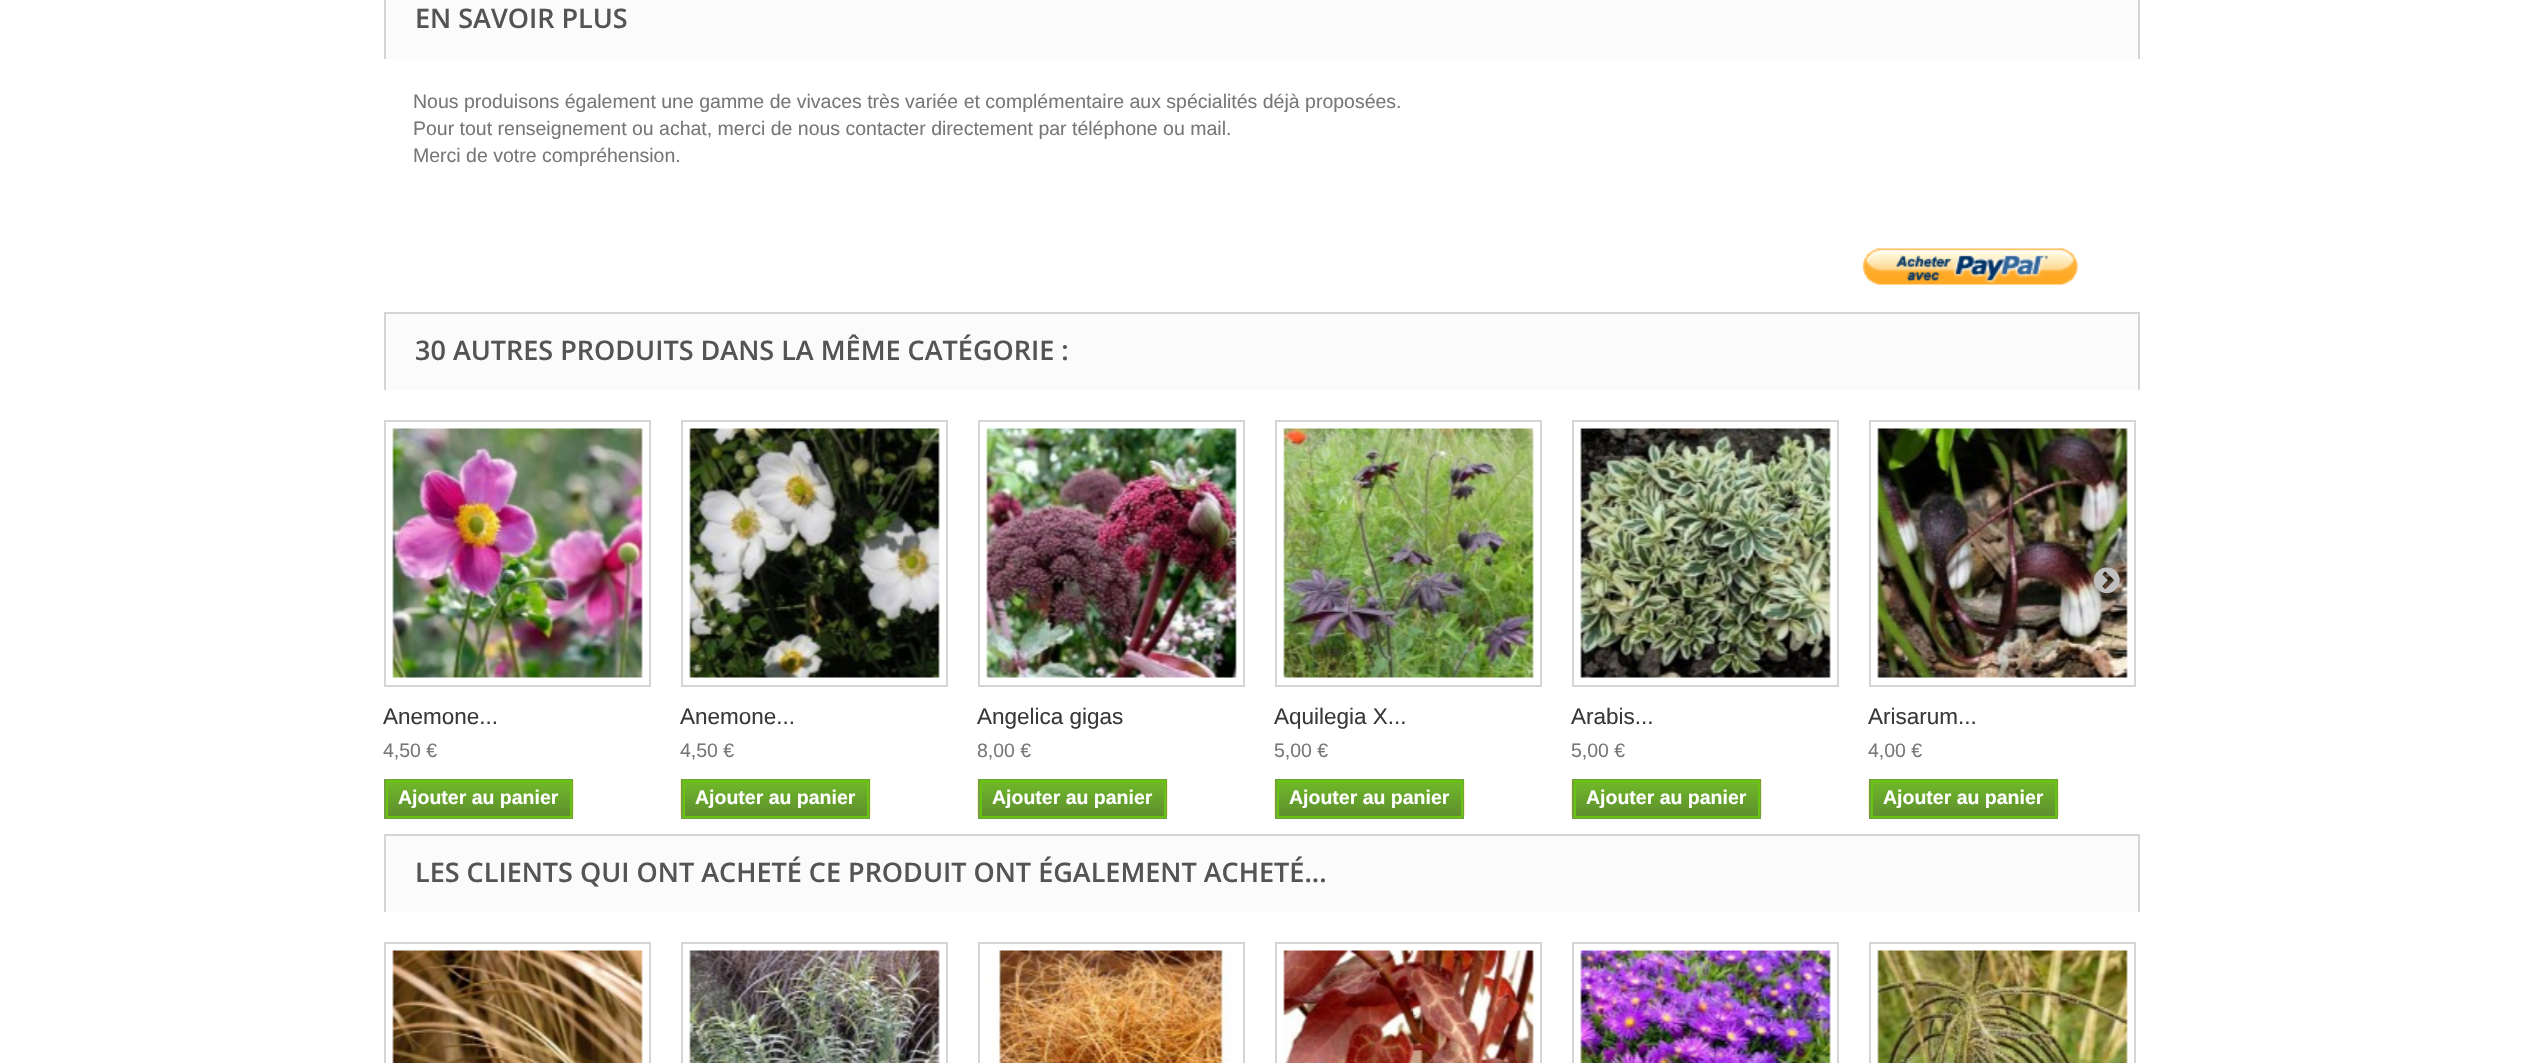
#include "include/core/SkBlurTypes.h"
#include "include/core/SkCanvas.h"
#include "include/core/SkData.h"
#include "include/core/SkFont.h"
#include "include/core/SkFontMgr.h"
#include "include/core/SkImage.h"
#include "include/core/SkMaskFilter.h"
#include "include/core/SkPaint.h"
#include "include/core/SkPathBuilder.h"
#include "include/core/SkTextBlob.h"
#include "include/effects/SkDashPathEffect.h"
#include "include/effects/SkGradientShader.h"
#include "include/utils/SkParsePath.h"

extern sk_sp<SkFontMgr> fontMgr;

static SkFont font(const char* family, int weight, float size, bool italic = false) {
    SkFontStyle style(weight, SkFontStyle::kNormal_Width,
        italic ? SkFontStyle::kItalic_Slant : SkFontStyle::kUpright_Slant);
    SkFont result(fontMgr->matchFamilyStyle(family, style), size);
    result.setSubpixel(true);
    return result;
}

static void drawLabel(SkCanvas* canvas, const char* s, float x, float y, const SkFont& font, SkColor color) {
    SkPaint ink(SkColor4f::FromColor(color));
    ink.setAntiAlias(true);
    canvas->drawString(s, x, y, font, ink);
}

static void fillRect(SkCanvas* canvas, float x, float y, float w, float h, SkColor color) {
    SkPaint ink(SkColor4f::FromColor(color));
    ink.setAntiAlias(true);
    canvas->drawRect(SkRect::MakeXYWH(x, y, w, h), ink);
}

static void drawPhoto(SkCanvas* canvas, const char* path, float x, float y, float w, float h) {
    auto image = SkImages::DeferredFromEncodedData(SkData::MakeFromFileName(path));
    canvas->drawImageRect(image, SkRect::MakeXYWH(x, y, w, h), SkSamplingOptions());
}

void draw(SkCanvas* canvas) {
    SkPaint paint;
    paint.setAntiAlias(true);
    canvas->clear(0xFFFFFFFF);
    fillRect(canvas, 386, 0, 1752, 59, 0xFFFBFBFB);
    fillRect(canvas, 2138, 0, 2, 59, 0xFFD6D4D4);
    fillRect(canvas, 384, 0, 2, 59, 0xFFD6D4D4);
    SkFont font1 = font("Open Sans", 600, 27);
    drawLabel(canvas, "EN SAVOIR PLUS", 415, 28, font1, 0xFF555454);
    SkFont font2 = font("Liberation Sans", 400, 19.5f);
    drawLabel(canvas, "Nous produisons également une gamme de vivaces très variée et complémentaire aux spécialités déjà proposées.", 413, 108, font2, 0xFF777777);
    drawLabel(canvas, "Pour tout renseignement ou achat, merci de nous contacter directement par téléphone ou mail.", 413, 135, font2, 0xFF777777);
    drawLabel(canvas, "Merci de votre compréhension.", 413, 162, font2, 0xFF777777);
    drawPhoto(canvas, "assets/img1.png", 1862, 248, 216, 37);
    fillRect(canvas, 386, 314, 1752, 76, 0xFFFBFBFB);
    fillRect(canvas, 384, 312, 1755, 2, 0xFFD6D4D4);
    fillRect(canvas, 2138, 312, 2, 78, 0xFFD6D4D4);
    fillRect(canvas, 384, 312, 2, 78, 0xFFD6D4D4);
    drawLabel(canvas, "30 AUTRES PRODUITS DANS LA MÊME CATÉGORIE :", 415, 360, font1, 0xFF555454);
    paint.setStroke(true);
    paint.setStrokeWidth(2);
    paint.setColor(0xFFD6D4D4);
    canvas->drawRect(SkRect::MakeXYWH(1870, 421, 265, 265), paint);
    drawPhoto(canvas, "assets/img10.png", 1877, 428, 251, 250);
    drawPhoto(canvas, "assets/img2.png", 2094, 567, 26, 27);
    canvas->drawRect(SkRect::MakeXYWH(385, 421, 265, 265), paint);
    drawPhoto(canvas, "assets/img3.png", 392, 428, 251, 250);
    SkFont font3 = font("Liberation Sans", 400, 22.5f);
    drawLabel(canvas, "Anemone...", 383, 724, font3, 0xFF3A3939);
    drawLabel(canvas, "4,50 €", 383, 757, font2, 0xFF777777);
    drawPhoto(canvas, "assets/img4.png", 573, 779, 1, 37);
    paint.setColor(0xFF719F41);
    canvas->drawRect(SkRect::MakeXYWH(385, 780, 187, 38), paint);
    paint.setStroke(false);
    {
        const SkColor colors[] = {0xFF6FB828, 0xFF5F8E2F};
        const float stops[] = {0, 1};
        const SkPoint ends[] = {{479, 782}, {479, 816}};
        paint.setShader(SkGradientShader::MakeLinear(ends, colors, stops, 2, SkTileMode::kClamp));
        paint.setAlpha(255);
    }
    canvas->drawRect(SkRect::MakeXYWH(388, 782, 182, 34), paint);
    paint.setStroke(true);
    paint.setShader(nullptr);
    paint.setColor(0xFF69C412);
    canvas->drawRect(SkRect::MakeXYWH(387, 781, 184, 36), paint);
    SkFont font4 = font("Liberation Sans", 700, 19.5f);
    drawLabel(canvas, "Ajouter au panier", 398, 804, font4, 0xFFFFFFFF);
    paint.setColor(0xFFD6D4D4);
    canvas->drawRect(SkRect::MakeXYWH(682, 421, 265, 265), paint);
    drawPhoto(canvas, "assets/img5.png", 689, 428, 251, 250);
    drawLabel(canvas, "Anemone...", 680, 724, font3, 0xFF3A3939);
    drawLabel(canvas, "4,50 €", 680, 757, font2, 0xFF777777);
    drawPhoto(canvas, "assets/img6.png", 680, 779, 191, 37);
    paint.setColor(0xFF719F41);
    canvas->drawRect(SkRect::MakeXYWH(682, 780, 187, 38), paint);
    paint.setStroke(false);
    {
        const SkColor colors[] = {0xFF6FB828, 0xFF5F8E2F};
        const float stops[] = {0, 1};
        const SkPoint ends[] = {{776, 782}, {776, 816}};
        paint.setShader(SkGradientShader::MakeLinear(ends, colors, stops, 2, SkTileMode::kClamp));
        paint.setAlpha(255);
    }
    canvas->drawRect(SkRect::MakeXYWH(685, 782, 182, 34), paint);
    paint.setStroke(true);
    paint.setShader(nullptr);
    paint.setColor(0xFF69C412);
    canvas->drawRect(SkRect::MakeXYWH(684, 781, 184, 36), paint);
    drawLabel(canvas, "Ajouter au panier", 695, 804, font4, 0xFFFFFFFF);
    paint.setColor(0xFFD6D4D4);
    canvas->drawRect(SkRect::MakeXYWH(979, 421, 265, 265), paint);
    drawPhoto(canvas, "assets/img7.png", 986, 428, 251, 250);
    drawLabel(canvas, "Angelica gigas", 977, 724, font3, 0xFF3A3939);
    drawLabel(canvas, "8,00 €", 977, 757, font2, 0xFF777777);
    drawPhoto(canvas, "assets/img6.png", 977, 779, 191, 37);
    paint.setColor(0xFF719F41);
    canvas->drawRect(SkRect::MakeXYWH(979, 780, 187, 38), paint);
    paint.setStroke(false);
    {
        const SkColor colors[] = {0xFF6FB828, 0xFF5F8E2F};
        const float stops[] = {0, 1};
        const SkPoint ends[] = {{1073, 782}, {1073, 816}};
        paint.setShader(SkGradientShader::MakeLinear(ends, colors, stops, 2, SkTileMode::kClamp));
        paint.setAlpha(255);
    }
    canvas->drawRect(SkRect::MakeXYWH(982, 782, 182, 34), paint);
    paint.setStroke(true);
    paint.setShader(nullptr);
    paint.setColor(0xFF69C412);
    canvas->drawRect(SkRect::MakeXYWH(981, 781, 184, 36), paint);
    drawLabel(canvas, "Ajouter au panier", 992, 804, font4, 0xFFFFFFFF);
    paint.setColor(0xFFD6D4D4);
    canvas->drawRect(SkRect::MakeXYWH(1276, 421, 265, 265), paint);
    drawPhoto(canvas, "assets/img8.png", 1283, 428, 251, 250);
    drawLabel(canvas, "Aquilegia X...", 1274, 724, font3, 0xFF3A3939);
    drawLabel(canvas, "5,00 €", 1274, 757, font2, 0xFF777777);
    drawPhoto(canvas, "assets/img6.png", 1274, 779, 191, 37);
    paint.setColor(0xFF719F41);
    canvas->drawRect(SkRect::MakeXYWH(1276, 780, 187, 38), paint);
    paint.setStroke(false);
    {
        const SkColor colors[] = {0xFF6FB828, 0xFF5F8E2F};
        const float stops[] = {0, 1};
        const SkPoint ends[] = {{1370, 782}, {1370, 816}};
        paint.setShader(SkGradientShader::MakeLinear(ends, colors, stops, 2, SkTileMode::kClamp));
        paint.setAlpha(255);
    }
    canvas->drawRect(SkRect::MakeXYWH(1279, 782, 182, 34), paint);
    paint.setStroke(true);
    paint.setShader(nullptr);
    paint.setColor(0xFF69C412);
    canvas->drawRect(SkRect::MakeXYWH(1278, 781, 184, 36), paint);
    drawLabel(canvas, "Ajouter au panier", 1289, 804, font4, 0xFFFFFFFF);
    paint.setColor(0xFFD6D4D4);
    canvas->drawRect(SkRect::MakeXYWH(1573, 421, 265, 265), paint);
    drawPhoto(canvas, "assets/img9.png", 1580, 428, 251, 250);
    drawLabel(canvas, "Arabis...", 1571, 724, font3, 0xFF3A3939);
    drawLabel(canvas, "5,00 €", 1571, 757, font2, 0xFF777777);
    drawPhoto(canvas, "assets/img6.png", 1571, 779, 191, 37);
    paint.setColor(0xFF719F41);
    canvas->drawRect(SkRect::MakeXYWH(1573, 780, 187, 38), paint);
    paint.setStroke(false);
    {
        const SkColor colors[] = {0xFF6FB828, 0xFF5F8E2F};
        const float stops[] = {0, 1};
        const SkPoint ends[] = {{1667, 782}, {1667, 816}};
        paint.setShader(SkGradientShader::MakeLinear(ends, colors, stops, 2, SkTileMode::kClamp));
        paint.setAlpha(255);
    }
    canvas->drawRect(SkRect::MakeXYWH(1576, 782, 182, 34), paint);
    paint.setStroke(true);
    paint.setShader(nullptr);
    paint.setColor(0xFF69C412);
    canvas->drawRect(SkRect::MakeXYWH(1575, 781, 184, 36), paint);
    drawLabel(canvas, "Ajouter au panier", 1586, 804, font4, 0xFFFFFFFF);
    drawLabel(canvas, "Arisarum...", 1868, 724, font3, 0xFF3A3939);
    drawLabel(canvas, "4,00 €", 1868, 757, font2, 0xFF777777);
    drawPhoto(canvas, "assets/img6.png", 1868, 779, 191, 37);
    paint.setColor(0xFF719F41);
    canvas->drawRect(SkRect::MakeXYWH(1870, 780, 187, 38), paint);
    paint.setStroke(false);
    {
        const SkColor colors[] = {0xFF6FB828, 0xFF5F8E2F};
        const float stops[] = {0, 1};
        const SkPoint ends[] = {{1964, 782}, {1964, 816}};
        paint.setShader(SkGradientShader::MakeLinear(ends, colors, stops, 2, SkTileMode::kClamp));
        paint.setAlpha(255);
    }
    canvas->drawRect(SkRect::MakeXYWH(1873, 782, 182, 34), paint);
    paint.setStroke(true);
    paint.setShader(nullptr);
    paint.setColor(0xFF69C412);
    canvas->drawRect(SkRect::MakeXYWH(1872, 781, 184, 36), paint);
    drawLabel(canvas, "Ajouter au panier", 1883, 804, font4, 0xFFFFFFFF);
    fillRect(canvas, 386, 836, 1752, 76, 0xFFFBFBFB);
    fillRect(canvas, 384, 834, 1755, 2, 0xFFD6D4D4);
    fillRect(canvas, 2138, 834, 2, 78, 0xFFD6D4D4);
    fillRect(canvas, 384, 834, 2, 78, 0xFFD6D4D4);
    drawLabel(canvas, "LES CLIENTS QUI ONT ACHETÉ CE PRODUIT ONT ÉGALEMENT ACHETÉ...", 415, 882, font1, 0xFF555454);
    paint.setColor(0xFFD6D4D4);
    canvas->drawRect(SkRect::MakeXYWH(385, 943, 265, 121), paint);
    drawPhoto(canvas, "assets/img11.png", 392, 950, 251, 113);
    canvas->drawRect(SkRect::MakeXYWH(682, 943, 265, 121), paint);
    drawPhoto(canvas, "assets/img12.png", 689, 950, 251, 113);
    canvas->drawRect(SkRect::MakeXYWH(979, 943, 265, 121), paint);
    drawPhoto(canvas, "assets/img13.png", 988, 950, 243, 113);
    canvas->drawRect(SkRect::MakeXYWH(1276, 943, 265, 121), paint);
    drawPhoto(canvas, "assets/img14.png", 1283, 950, 251, 113);
    canvas->drawRect(SkRect::MakeXYWH(1573, 943, 265, 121), paint);
    drawPhoto(canvas, "assets/img15.png", 1580, 950, 251, 113);
    canvas->drawRect(SkRect::MakeXYWH(1870, 943, 265, 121), paint);
    drawPhoto(canvas, "assets/img16.png", 1877, 950, 251, 113);
}
